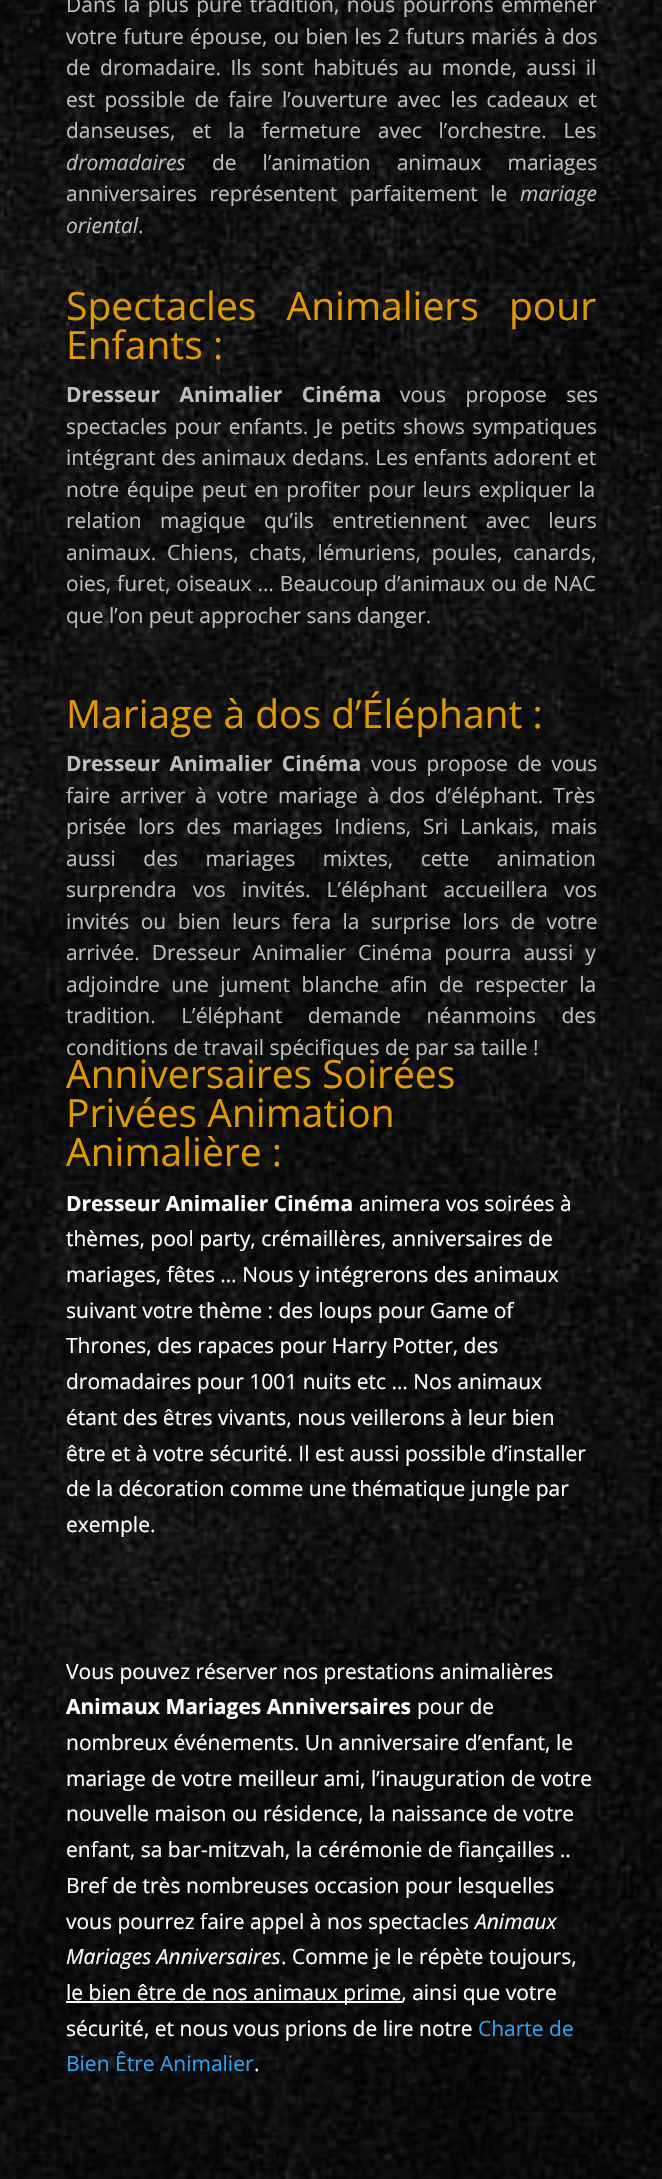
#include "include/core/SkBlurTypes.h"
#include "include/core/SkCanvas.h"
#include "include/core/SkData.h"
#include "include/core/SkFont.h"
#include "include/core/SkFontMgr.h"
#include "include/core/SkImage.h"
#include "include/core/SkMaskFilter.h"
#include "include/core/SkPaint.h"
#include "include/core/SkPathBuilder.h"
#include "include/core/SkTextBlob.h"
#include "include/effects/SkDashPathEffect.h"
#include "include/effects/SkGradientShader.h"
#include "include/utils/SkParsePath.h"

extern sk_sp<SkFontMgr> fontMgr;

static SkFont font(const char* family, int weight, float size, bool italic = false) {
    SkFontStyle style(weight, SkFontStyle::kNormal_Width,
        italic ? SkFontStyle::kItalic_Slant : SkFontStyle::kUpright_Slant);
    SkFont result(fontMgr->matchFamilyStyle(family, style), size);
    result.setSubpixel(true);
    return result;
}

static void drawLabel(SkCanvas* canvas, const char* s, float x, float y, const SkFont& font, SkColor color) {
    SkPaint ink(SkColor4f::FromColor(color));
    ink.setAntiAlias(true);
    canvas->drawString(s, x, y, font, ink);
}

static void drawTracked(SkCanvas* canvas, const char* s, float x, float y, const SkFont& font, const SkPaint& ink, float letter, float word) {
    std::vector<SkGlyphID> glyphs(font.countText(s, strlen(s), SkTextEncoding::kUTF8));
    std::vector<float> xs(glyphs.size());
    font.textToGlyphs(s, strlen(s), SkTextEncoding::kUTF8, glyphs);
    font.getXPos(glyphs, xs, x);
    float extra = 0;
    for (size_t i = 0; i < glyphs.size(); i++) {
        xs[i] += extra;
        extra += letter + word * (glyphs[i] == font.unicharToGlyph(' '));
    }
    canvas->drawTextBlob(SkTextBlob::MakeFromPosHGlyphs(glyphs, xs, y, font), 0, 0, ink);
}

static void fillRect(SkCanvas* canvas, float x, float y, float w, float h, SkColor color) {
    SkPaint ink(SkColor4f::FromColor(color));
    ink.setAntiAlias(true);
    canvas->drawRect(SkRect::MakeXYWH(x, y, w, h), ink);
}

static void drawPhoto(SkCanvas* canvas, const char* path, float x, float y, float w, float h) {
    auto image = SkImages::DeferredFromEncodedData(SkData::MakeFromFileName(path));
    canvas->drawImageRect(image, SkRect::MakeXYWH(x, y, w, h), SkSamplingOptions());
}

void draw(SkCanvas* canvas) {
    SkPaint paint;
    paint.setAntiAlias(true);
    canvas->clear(0xFFFFFFFF);
    drawPhoto(canvas, "assets/img1.png", 0, 0, 662, 2179);
    SkFont font1 = font("Open Sans", 400, 21);
    paint.setColor(0xFFBEBEBE);
    drawTracked(canvas, "Dans la plus pure tradition, nous pourrons emmener", 66, 12, font1, paint, 0, 2);
    drawTracked(canvas, "votre future épouse, ou bien les 2 futurs mariés à dos", 66, 44, font1, paint, 0, 0.75f);
    drawTracked(canvas, "de dromadaire. Ils sont habitués au monde, aussi il", 66, 75, font1, paint, 0, 4);
    drawTracked(canvas, "est possible de faire l’ouverture avec les cadeaux et", 66, 107, font1, paint, 0, 3.75f);
    drawTracked(canvas, "danseuses, et la fermeture avec l’orchestre. Les", 66, 138, font1, paint, 0, 11.25f);
    SkFont font2 = font("Open Sans", 400, 21, true);
    drawLabel(canvas, "dromadaires", 66, 170, font2, 0xFFBEBEBE);
    drawTracked(canvas, "de l’animation animaux mariages", 212, 170, font1, paint, 0, 20.5f);
    drawTracked(canvas, "anniversaires représentent parfaitement le", 66, 201, font1, paint, 0, 7);
    drawLabel(canvas, "mariage", 520, 201, font2, 0xFFBEBEBE);
    drawLabel(canvas, "oriental", 66, 233, font2, 0xFFBEBEBE);
    drawLabel(canvas, ".", 138, 233, font1, 0xFFBEBEBE);
    SkFont font3 = font("Open Sans", 400, 39);
    paint.setColor(0xFFE09900);
    drawTracked(canvas, "Spectacles Animaliers pour", 66, 320, font3, paint, 0, 20);
    drawLabel(canvas, "Enfants :", 66, 359, font3, 0xFFE09900);
    SkFont font4 = font("Open Sans", 700, 21);
    paint.setColor(0xFFBEBEBE);
    drawTracked(canvas, "Dresseur Animalier Cinéma", 66, 402, font4, paint, 0, 14);
    drawTracked(canvas, "vous propose ses", 400, 402, font1, paint, 0, 14);
    drawTracked(canvas, "spectacles pour enfants. Je petits shows sympatiques", 66, 434, font1, paint, 0, 2);
    drawTracked(canvas, "intégrant des animaux dedans. Les enfants adorent et", 66, 465, font1, paint, 0, 0.25f);
    drawTracked(canvas, "notre équipe peut en profiter pour leurs expliquer la", 66, 497, font1, paint, 0, 2);
    drawTracked(canvas, "relation magique qu’ils entretiennent avec leurs", 66, 528, font1, paint, 0, 13);
    drawTracked(canvas, "animaux. Chiens, chats, lémuriens, poules, canards,", 66, 560, font1, paint, 0, 5.25f);
    drawTracked(canvas, "oies, furet, oiseaux … Beaucoup d’animaux ou de NAC", 66, 591, font1, paint, 0, 0.5f);
    drawLabel(canvas, "que l’on peut approcher sans danger.", 66, 623, font1, 0xFFBEBEBE);
    drawLabel(canvas, "Mariage à dos d’Éléphant :", 66, 728, font3, 0xFFE09900);
    drawTracked(canvas, "Dresseur Animalier Cinéma", 66, 771, font4, paint, 0, 4);
    drawTracked(canvas, "vous propose de vous", 371, 771, font1, paint, 0, 4);
    drawTracked(canvas, "faire arriver à votre mariage à dos d’éléphant. Très", 66, 803, font1, paint, 0, 4.5f);
    drawTracked(canvas, "prisée lors des mariages Indiens, Sri Lankais, mais", 66, 834, font1, paint, 0, 6.25f);
    drawTracked(canvas, "aussi des mariages mixtes, cette animation", 66, 866, font1, paint, 0, 22);
    drawTracked(canvas, "surprendra vos invités. L’éléphant accueillera vos", 66, 897, font1, paint, 0, 10.5f);
    drawTracked(canvas, "invités ou bien leurs fera la surprise lors de votre", 66, 929, font1, paint, 0, 6);
    drawTracked(canvas, "arrivée. Dresseur Animalier Cinéma pourra aussi y", 66, 960, font1, paint, 0, 6.5f);
    drawTracked(canvas, "adjoindre une jument blanche afin de respecter la", 66, 992, font1, paint, 0, 6);
    drawTracked(canvas, "tradition. L’éléphant demande néanmoins des", 66, 1023, font1, paint, 0, 20);
    drawLabel(canvas, "conditions de travail spécifiques de par sa taille !", 66, 1055, font1, 0xFFBEBEBE);
    drawLabel(canvas, "Anniversaires Soirées", 66, 1088, font3, 0xFFE09900);
    drawLabel(canvas, "Privées Animation", 66, 1127, font3, 0xFFE09900);
    drawLabel(canvas, "Animalière :", 66, 1166, font3, 0xFFE09900);
    drawLabel(canvas, "Dresseur Animalier Cinéma", 66, 1211, font4, 0xFFFFFFFF);
    drawLabel(canvas, "animera vos soirées à", 359, 1211, font1, 0xFFFFFFFF);
    drawLabel(canvas, "thèmes, pool party, crémaillères, anniversaires de", 66, 1246, font1, 0xFFFFFFFF);
    drawLabel(canvas, "mariages, fêtes … Nous y intégrerons des animaux", 66, 1282, font1, 0xFFFFFFFF);
    drawLabel(canvas, "suivant votre thème : des loups pour Game of", 66, 1318, font1, 0xFFFFFFFF);
    drawLabel(canvas, "Thrones, des rapaces pour Harry Potter, des", 66, 1353, font1, 0xFFFFFFFF);
    drawLabel(canvas, "dromadaires pour 1001 nuits etc … Nos animaux", 66, 1389, font1, 0xFFFFFFFF);
    drawLabel(canvas, "étant des êtres vivants, nous veillerons à leur bien", 66, 1425, font1, 0xFFFFFFFF);
    drawLabel(canvas, "être et à votre sécurité. Il est aussi possible d’installer", 66, 1461, font1, 0xFFFFFFFF);
    drawLabel(canvas, "de la décoration comme une thématique jungle par", 66, 1496, font1, 0xFFFFFFFF);
    drawLabel(canvas, "exemple.", 66, 1532, font1, 0xFFFFFFFF);
    drawLabel(canvas, "Vous pouvez réserver nos prestations animalières", 66, 1679, font1, 0xFFFFFFFF);
    drawLabel(canvas, "Animaux Mariages Anniversaires", 66, 1714, font4, 0xFFFFFFFF);
    drawLabel(canvas, "pour de", 417, 1714, font1, 0xFFFFFFFF);
    drawLabel(canvas, "nombreux événements. Un anniversaire d’enfant, le", 66, 1750, font1, 0xFFFFFFFF);
    drawLabel(canvas, "mariage de votre meilleur ami, l’inauguration de votre", 66, 1786, font1, 0xFFFFFFFF);
    drawLabel(canvas, "nouvelle maison ou résidence, la naissance de votre", 66, 1821, font1, 0xFFFFFFFF);
    drawLabel(canvas, "enfant, sa bar-mitzvah, la cérémonie de fiançailles ..", 66, 1857, font1, 0xFFFFFFFF);
    drawLabel(canvas, "Bref de très nombreuses occasion pour lesquelles", 66, 1893, font1, 0xFFFFFFFF);
    drawLabel(canvas, "vous pourrez faire appel à nos spectacles", 66, 1929, font1, 0xFFFFFFFF);
    drawLabel(canvas, "Animaux", 475, 1929, font2, 0xFFFFFFFF);
    drawLabel(canvas, "Mariages Anniversaires", 66, 1964, font2, 0xFFFFFFFF);
    drawLabel(canvas, ". Comme je le répète toujours,", 281, 1964, font1, 0xFFFFFFFF);
    fillRect(canvas, 66, 2001, 336, 2, 0xFFFFFFFF);
    drawLabel(canvas, "le bien être de nos animaux prime, ainsi que votre", 66, 2000, font1, 0xFFFFFFFF);
    drawLabel(canvas, "sécurité, et nous vous prions de lire notre", 66, 2036, font1, 0xFFFFFFFF);
    drawLabel(canvas, "Charte de", 478, 2036, font1, 0xFF2EA3F2);
    drawLabel(canvas, "Bien Être Animalier", 66, 2071, font1, 0xFF2EA3F2);
    drawLabel(canvas, ".", 254, 2071, font1, 0xFFFFFFFF);
}
